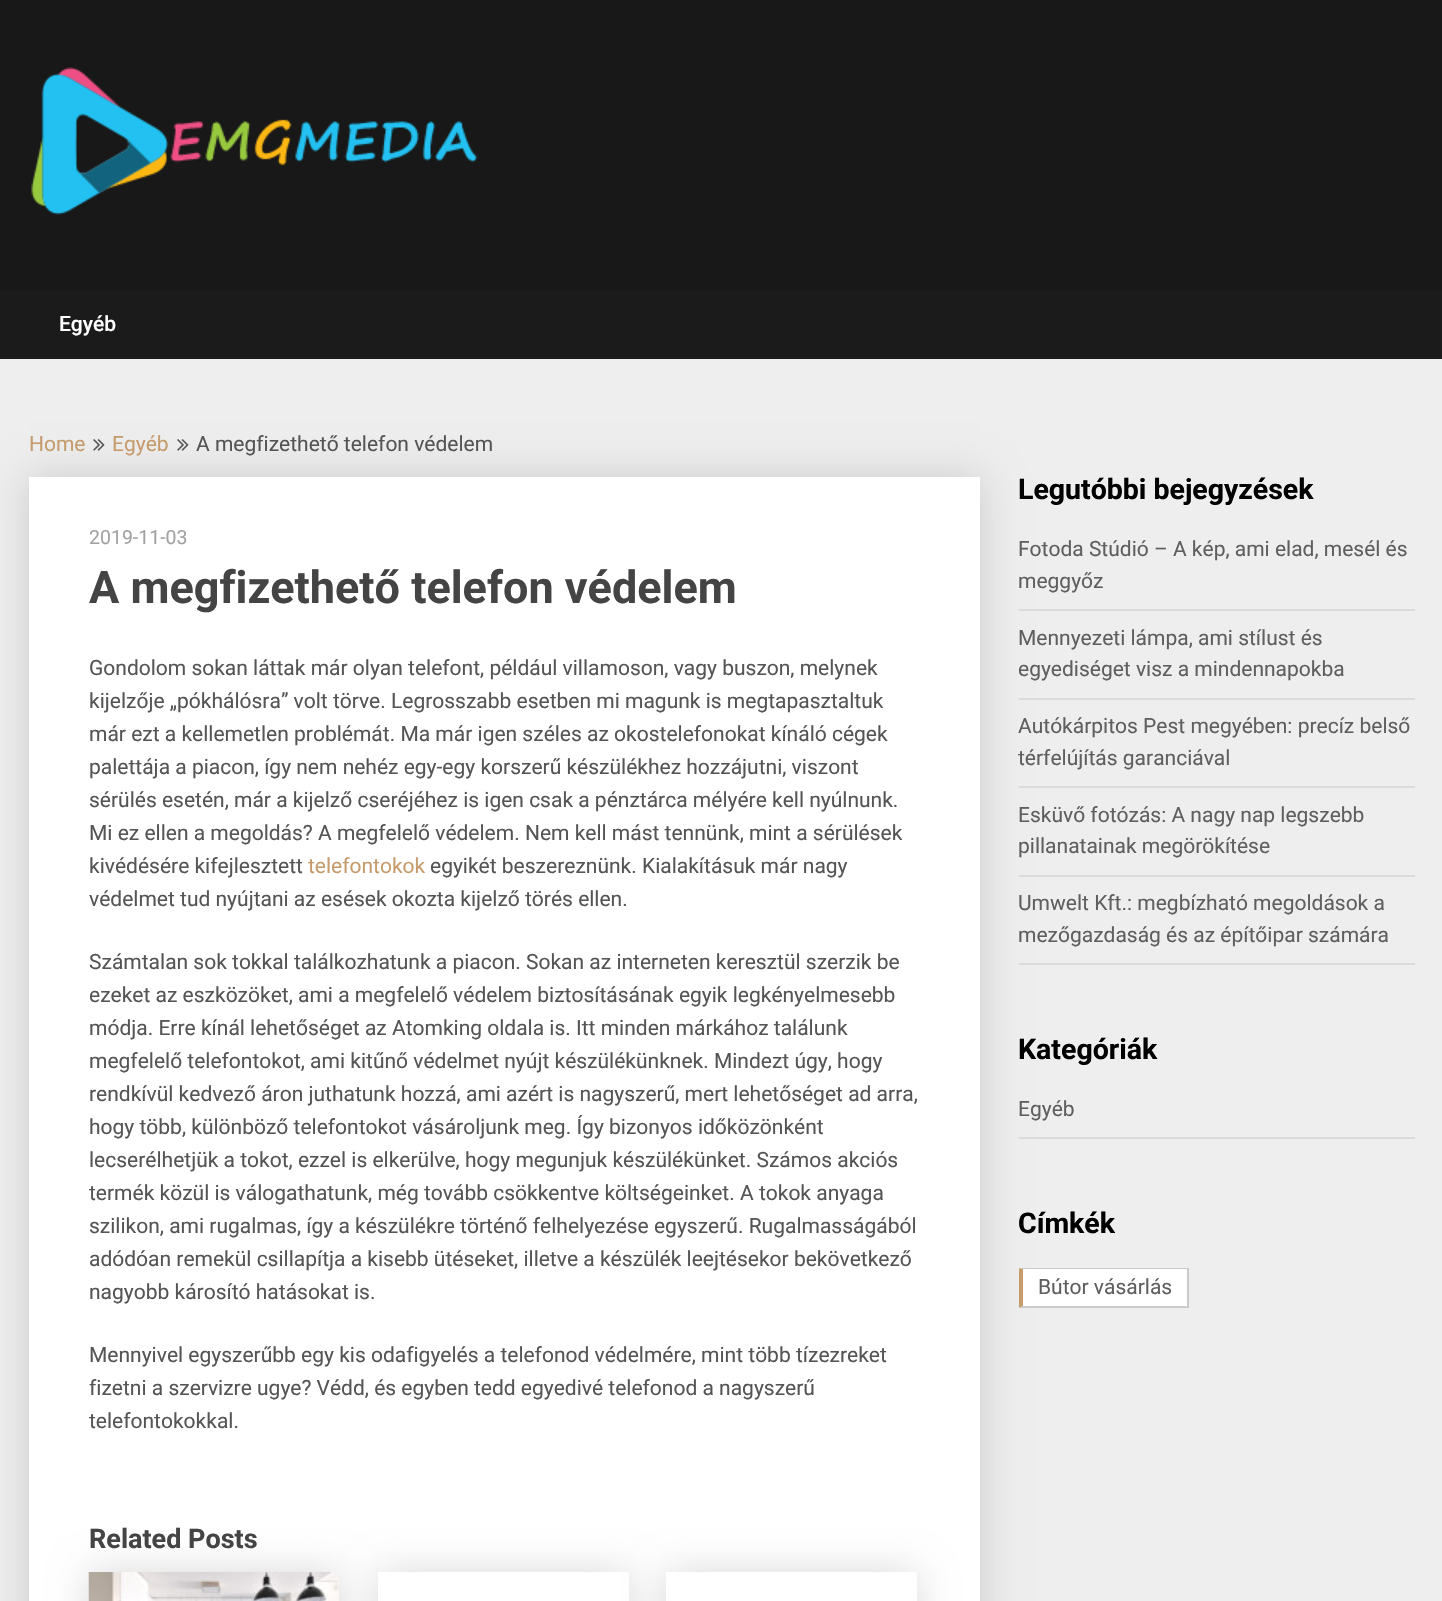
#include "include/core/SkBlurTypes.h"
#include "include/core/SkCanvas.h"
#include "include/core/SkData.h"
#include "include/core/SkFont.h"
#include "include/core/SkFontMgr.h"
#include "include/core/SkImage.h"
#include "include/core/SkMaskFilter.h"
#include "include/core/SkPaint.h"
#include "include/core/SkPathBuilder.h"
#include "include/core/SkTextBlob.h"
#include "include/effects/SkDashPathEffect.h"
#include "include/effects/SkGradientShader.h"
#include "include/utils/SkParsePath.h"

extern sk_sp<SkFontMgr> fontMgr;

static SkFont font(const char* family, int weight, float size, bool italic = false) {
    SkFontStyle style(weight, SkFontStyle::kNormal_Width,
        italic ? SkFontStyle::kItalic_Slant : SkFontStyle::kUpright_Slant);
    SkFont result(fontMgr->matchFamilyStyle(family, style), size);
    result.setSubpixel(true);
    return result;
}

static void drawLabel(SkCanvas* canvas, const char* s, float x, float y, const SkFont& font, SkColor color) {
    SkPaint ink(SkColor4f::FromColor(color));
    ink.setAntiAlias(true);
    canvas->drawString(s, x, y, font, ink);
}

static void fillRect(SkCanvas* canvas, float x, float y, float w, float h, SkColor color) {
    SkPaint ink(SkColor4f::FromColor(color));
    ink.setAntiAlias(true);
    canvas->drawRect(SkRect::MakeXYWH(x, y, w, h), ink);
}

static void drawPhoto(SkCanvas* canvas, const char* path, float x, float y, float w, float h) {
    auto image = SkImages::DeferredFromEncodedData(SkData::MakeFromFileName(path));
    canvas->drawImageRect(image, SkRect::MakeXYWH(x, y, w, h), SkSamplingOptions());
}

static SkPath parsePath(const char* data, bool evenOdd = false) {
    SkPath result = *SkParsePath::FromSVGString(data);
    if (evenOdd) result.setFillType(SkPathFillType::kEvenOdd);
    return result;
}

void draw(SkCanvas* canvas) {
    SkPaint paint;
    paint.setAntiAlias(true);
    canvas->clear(0xFFEEEEEE);
    fillRect(canvas, 0, 0, 1442, 291, 0xFF181818);
    drawPhoto(canvas, "assets/img1.png", 31, 67, 447, 148);
    fillRect(canvas, 0, 291, 1442, 68, 0xFF1B1B1B);
    SkFont font1 = font("Roboto", 500, 21);
    drawLabel(canvas, "Egyéb", 59, 331, font1, 0xFFFFFFFF);
    paint.setColor(0x26000000);
    paint.setMaskFilter(SkMaskFilter::MakeBlur(kNormal_SkBlurStyle, 19));
    canvas->drawRect(SkRect::MakeXYWH(29, 477, 951, 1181), paint);
    paint.setMaskFilter(nullptr);
    SkFont font2 = font("Roboto", 400, 21);
    drawLabel(canvas, "Home", 29, 451, font2, 0xFFC69C6D);
    drawPhoto(canvas, "assets/img2.png", 93, 439, 12, 12);
    drawLabel(canvas, "Egyéb", 112, 451, font2, 0xFFC69C6D);
    drawPhoto(canvas, "assets/img2.png", 177, 439, 12, 12);
    drawLabel(canvas, "A megfizethető telefon védelem", 196, 451, font2, 0xFF555555);
    fillRect(canvas, 29, 477, 951, 1124, 0xFFFFFFFF);
    SkFont font3 = font("Roboto", 400, 19.5f);
    drawLabel(canvas, "2019-11-03", 89, 544, font3, 0xFFA2A2A2);
    SkFont font4 = font("Roboto", 700, 45);
    drawLabel(canvas, "A megfizethető telefon védelem", 89, 603, font4, 0xFF444444);
    drawLabel(canvas, "Gondolom sokan láttak már olyan telefont, például villamoson, vagy buszon, melynek", 89, 675, font2, 0xFF555555);
    drawLabel(canvas, "kijelzője „pókhálósra” volt törve. Legrosszabb esetben mi magunk is megtapasztaltuk", 89, 708, font2, 0xFF555555);
    drawLabel(canvas, "már ezt a kellemetlen problémát. Ma már igen széles az okostelefonokat kínáló cégek", 89, 741, font2, 0xFF555555);
    drawLabel(canvas, "palettája a piacon, így nem nehéz egy-egy korszerű készülékhez hozzájutni, viszont", 89, 774, font2, 0xFF555555);
    drawLabel(canvas, "sérülés esetén, már a kijelző cseréjéhez is igen csak a pénztárca mélyére kell nyúlnunk.", 89, 807, font2, 0xFF555555);
    drawLabel(canvas, "Mi ez ellen a megoldás? A megfelelő védelem. Nem kell mást tennünk, mint a sérülések", 89, 840, font2, 0xFF555555);
    drawLabel(canvas, "kivédésére kifejlesztett", 89, 873, font2, 0xFF555555);
    drawLabel(canvas, "telefontokok", 308, 873, font2, 0xFFC69C6D);
    drawLabel(canvas, "egyikét beszereznünk. Kialakításuk már nagy", 430, 873, font2, 0xFF555555);
    drawLabel(canvas, "védelmet tud nyújtani az esések okozta kijelző törés ellen.", 89, 906, font2, 0xFF555555);
    drawLabel(canvas, "Számtalan sok tokkal találkozhatunk a piacon. Sokan az interneten keresztül szerzik be", 89, 969, font2, 0xFF555555);
    drawLabel(canvas, "ezeket az eszközöket, ami a megfelelő védelem biztosításának egyik legkényelmesebb", 89, 1002, font2, 0xFF555555);
    drawLabel(canvas, "módja. Erre kínál lehetőséget az Atomking oldala is. Itt minden márkához találunk", 89, 1035, font2, 0xFF555555);
    drawLabel(canvas, "megfelelő telefontokot, ami kitűnő védelmet nyújt készülékünknek. Mindezt úgy, hogy", 89, 1068, font2, 0xFF555555);
    drawLabel(canvas, "rendkívül kedvező áron juthatunk hozzá, ami azért is nagyszerű, mert lehetőséget ad arra,", 89, 1101, font2, 0xFF555555);
    drawLabel(canvas, "hogy több, különböző telefontokot vásároljunk meg. Így bizonyos időközönként", 89, 1134, font2, 0xFF555555);
    drawLabel(canvas, "lecserélhetjük a tokot, ezzel is elkerülve, hogy megunjuk készülékünket. Számos akciós", 89, 1167, font2, 0xFF555555);
    drawLabel(canvas, "termék közül is válogathatunk, még tovább csökkentve költségeinket. A tokok anyaga", 89, 1200, font2, 0xFF555555);
    drawLabel(canvas, "szilikon, ami rugalmas, így a készülékre történő felhelyezése egyszerű. Rugalmasságából", 89, 1233, font2, 0xFF555555);
    drawLabel(canvas, "adódóan remekül csillapítja a kisebb ütéseket, illetve a készülék leejtésekor bekövetkező", 89, 1266, font2, 0xFF555555);
    drawLabel(canvas, "nagyobb károsító hatásokat is.", 89, 1299, font2, 0xFF555555);
    drawLabel(canvas, "Mennyivel egyszerűbb egy kis odafigyelés a telefonod védelmére, mint több tízezreket", 89, 1362, font2, 0xFF555555);
    drawLabel(canvas, "fizetni a szervizre ugye? Védd, és egyben tedd egyedivé telefonod a nagyszerű", 89, 1395, font2, 0xFF555555);
    drawLabel(canvas, "telefontokokkal.", 89, 1428, font2, 0xFF555555);
    paint.setMaskFilter(SkMaskFilter::MakeBlur(kNormal_SkBlurStyle, 19));
    canvas->drawRect(SkRect::MakeXYWH(89, 1572, 250, 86), paint);
    paint.setMaskFilter(nullptr);
    drawPhoto(canvas, "assets/img3.png", 88, 1572, 251, 29);
    paint.setMaskFilter(SkMaskFilter::MakeBlur(kNormal_SkBlurStyle, 19));
    canvas->drawRect(SkRect::MakeXYWH(378, 1572, 251, 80), paint);
    paint.setMaskFilter(nullptr);
    fillRect(canvas, 378, 1572, 251, 29, 0xFFFFFFFF);
    paint.setMaskFilter(SkMaskFilter::MakeBlur(kNormal_SkBlurStyle, 19));
    canvas->drawRect(SkRect::MakeXYWH(666, 1572, 251, 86), paint);
    paint.setMaskFilter(nullptr);
    fillRect(canvas, 666, 1572, 251, 29, 0xFFFFFFFF);
    SkFont font5 = font("Roboto", 700, 27);
    drawLabel(canvas, "Related Posts", 89, 1548, font5, 0xFF444444);
    SkFont font6 = font("Roboto", 700, 28.5f);
    drawLabel(canvas, "Legutóbbi bejegyzések", 1018, 499, font6, 0xFF000000);
    fillRect(canvas, 1019, 609, 396, 2, 0xFFDBDBDB);
    drawLabel(canvas, "Fotoda Stúdió – A kép, ami elad, mesél és", 1018, 556, font2, 0xFF5F5F5F);
    drawLabel(canvas, "meggyőz", 1018, 588, font2, 0xFF5F5F5F);
    fillRect(canvas, 1019, 698, 396, 2, 0xFFDBDBDB);
    drawLabel(canvas, "Mennyezeti lámpa, ami stílust és", 1018, 645, font2, 0xFF5F5F5F);
    drawLabel(canvas, "egyediséget visz a mindennapokba", 1018, 676, font2, 0xFF5F5F5F);
    fillRect(canvas, 1019, 786, 396, 2, 0xFFDBDBDB);
    drawLabel(canvas, "Autókárpitos Pest megyében: precíz belső", 1018, 733, font2, 0xFF5F5F5F);
    drawLabel(canvas, "térfelújítás garanciával", 1018, 765, font2, 0xFF5F5F5F);
    fillRect(canvas, 1019, 875, 396, 2, 0xFFDBDBDB);
    drawLabel(canvas, "Esküvő fotózás: A nagy nap legszebb", 1018, 822, font2, 0xFF5F5F5F);
    drawLabel(canvas, "pillanatainak megörökítése", 1018, 853, font2, 0xFF5F5F5F);
    fillRect(canvas, 1019, 963, 396, 2, 0xFFDBDBDB);
    drawLabel(canvas, "Umwelt Kft.: megbízható megoldások a", 1018, 910, font2, 0xFF5F5F5F);
    drawLabel(canvas, "mezőgazdaság és az építőipar számára", 1018, 942, font2, 0xFF5F5F5F);
    drawLabel(canvas, "Kategóriák", 1018, 1059, font6, 0xFF000000);
    fillRect(canvas, 1019, 1137, 396, 2, 0xFFDBDBDB);
    drawLabel(canvas, "Egyéb", 1018, 1116, font2, 0xFF5F5F5F);
    drawLabel(canvas, "Címkék", 1018, 1233, font6, 0xFF000000);
    fillRect(canvas, 1023, 1269, 164, 38, 0xFFFFFFFF);
    paint.setColor(0xFFCACACA);
    canvas->drawPath(parsePath("M1018 1268H1188L1186 1269H1023Z"), paint);
    fillRect(canvas, 1187, 1268, 2, 40, 0xFFCACACA);
    canvas->drawPath(parsePath("M1188 1308H1018L1023 1306H1186Z"), paint);
    canvas->save();
    canvas->clipRect(SkRect::MakeXYWH(1019, 1181, 396, 142));
    paint.setColor(0xFFC69C6D);
    canvas->drawPath(parsePath("M1018 1308V1268L1023 1269V1306Z"), paint);
    canvas->restore();
    drawLabel(canvas, "Bútor vásárlás", 1038, 1294, font2, 0xFF5F5F5F);
}
